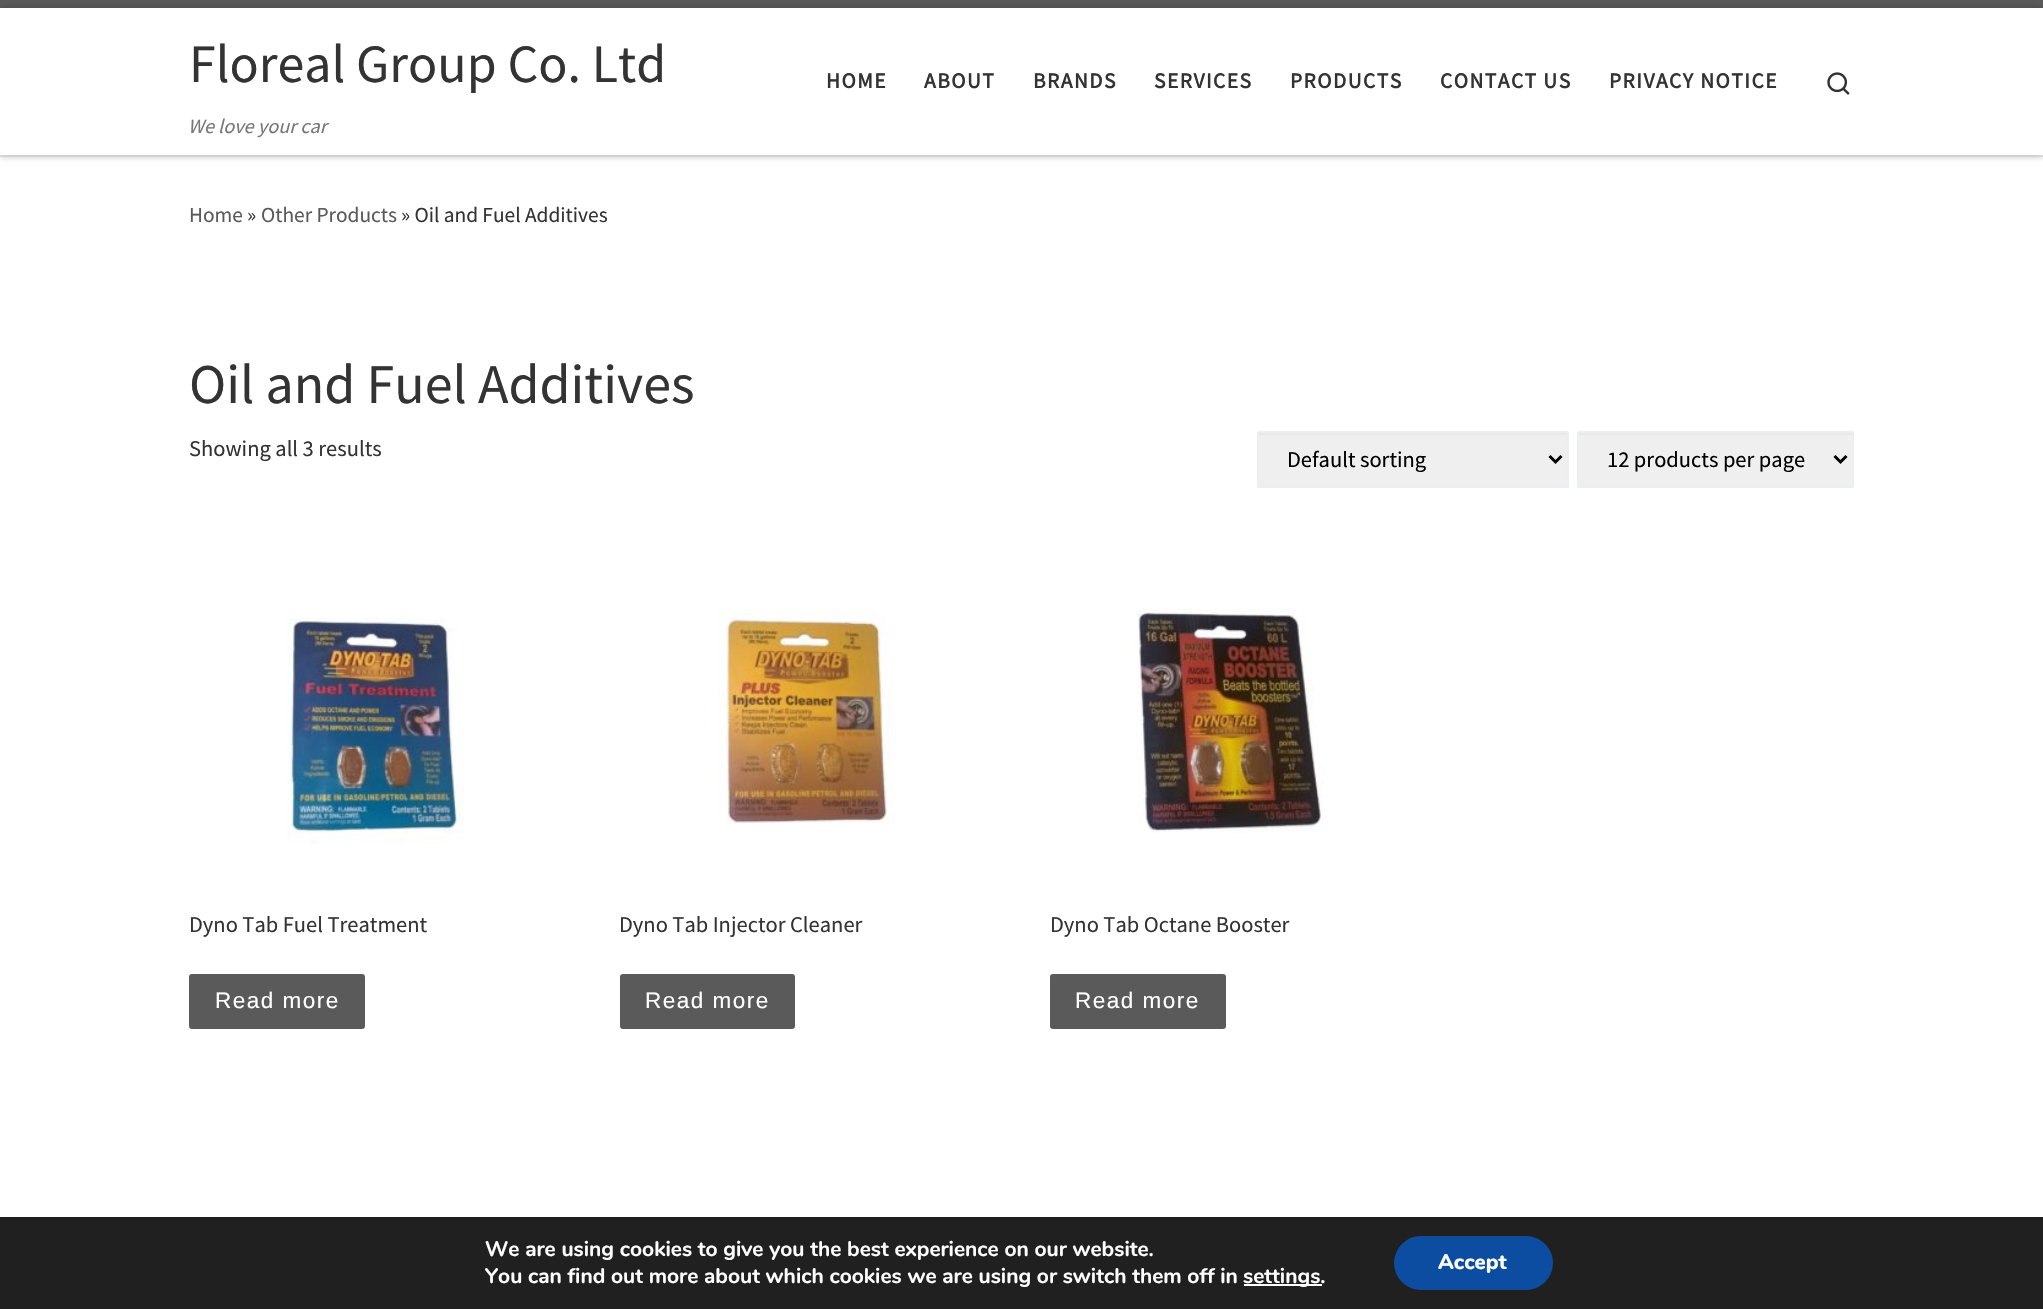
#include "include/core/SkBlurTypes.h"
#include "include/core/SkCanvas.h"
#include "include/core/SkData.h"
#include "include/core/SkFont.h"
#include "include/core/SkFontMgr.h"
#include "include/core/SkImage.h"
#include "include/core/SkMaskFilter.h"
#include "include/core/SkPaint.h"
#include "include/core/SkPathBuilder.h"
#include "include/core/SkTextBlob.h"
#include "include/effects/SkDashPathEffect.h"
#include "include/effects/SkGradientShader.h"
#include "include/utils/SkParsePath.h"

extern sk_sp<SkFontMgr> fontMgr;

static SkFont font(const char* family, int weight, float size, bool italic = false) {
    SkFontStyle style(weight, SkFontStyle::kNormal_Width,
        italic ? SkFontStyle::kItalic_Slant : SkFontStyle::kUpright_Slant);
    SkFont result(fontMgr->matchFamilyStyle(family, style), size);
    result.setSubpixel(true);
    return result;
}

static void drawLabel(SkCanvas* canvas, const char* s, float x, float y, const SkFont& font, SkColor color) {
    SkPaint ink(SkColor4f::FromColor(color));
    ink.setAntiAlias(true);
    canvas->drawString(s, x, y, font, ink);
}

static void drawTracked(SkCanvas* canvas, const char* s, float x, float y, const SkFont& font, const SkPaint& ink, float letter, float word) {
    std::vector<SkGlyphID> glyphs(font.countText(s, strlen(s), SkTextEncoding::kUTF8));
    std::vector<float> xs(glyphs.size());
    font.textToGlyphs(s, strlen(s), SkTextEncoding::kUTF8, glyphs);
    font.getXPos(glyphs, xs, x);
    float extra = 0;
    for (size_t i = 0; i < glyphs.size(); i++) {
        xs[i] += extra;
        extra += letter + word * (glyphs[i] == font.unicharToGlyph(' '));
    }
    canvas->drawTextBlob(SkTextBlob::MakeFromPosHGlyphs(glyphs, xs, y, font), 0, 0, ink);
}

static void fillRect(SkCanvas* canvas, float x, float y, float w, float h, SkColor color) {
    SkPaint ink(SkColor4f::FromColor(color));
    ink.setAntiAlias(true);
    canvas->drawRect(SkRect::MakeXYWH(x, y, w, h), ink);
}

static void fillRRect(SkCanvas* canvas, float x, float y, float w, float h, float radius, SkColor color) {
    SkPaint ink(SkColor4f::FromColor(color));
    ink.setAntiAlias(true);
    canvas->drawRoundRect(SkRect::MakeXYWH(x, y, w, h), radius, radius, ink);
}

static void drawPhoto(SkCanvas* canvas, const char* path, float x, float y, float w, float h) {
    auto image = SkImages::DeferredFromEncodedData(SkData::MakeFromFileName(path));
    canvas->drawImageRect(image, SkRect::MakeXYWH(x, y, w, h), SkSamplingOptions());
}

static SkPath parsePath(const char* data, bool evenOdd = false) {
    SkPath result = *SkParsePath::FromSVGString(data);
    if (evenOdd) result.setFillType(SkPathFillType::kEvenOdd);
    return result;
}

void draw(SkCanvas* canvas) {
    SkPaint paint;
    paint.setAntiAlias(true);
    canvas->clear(0xFFFFFFFF);
    paint.setColor(0x14666666);
    paint.setMaskFilter(SkMaskFilter::MakeBlur(kNormal_SkBlurStyle, 1.5f));
    canvas->drawRect(SkRect::MakeXYWH(0, 3, 2043, 156), paint);
    paint.setMaskFilter(nullptr);
    fillRect(canvas, 0, 0, 2043, 8, 0xFF5A5A5A);
    fillRect(canvas, 0, 155, 2043, 2, 0x17313131);
    fillRect(canvas, 0, 155, 2043, 1, 0x26FFFFFF);
    paint.setColor(0x33000000);
    paint.setMaskFilter(SkMaskFilter::MakeBlur(kNormal_SkBlurStyle, 4));
    canvas->drawRect(SkRect::MakeXYWH(0, 8, 2043, 147), paint);
    paint.setMaskFilter(nullptr);
    fillRect(canvas, 0, 8, 2043, 147, 0xFFFFFFFF);
    SkFont font1 = font("Source Sans Pro", 400, 54);
    drawLabel(canvas, "Floreal Group Co. Ltd", 189, 82, font1, 0xFF333333);
    SkFont font2 = font("Source Sans Pro", 400, 20.25f, true);
    drawLabel(canvas, "We love your car", 188, 133, font2, 0xFF777777);
    SkFont font3 = font("Source Sans Pro", 700, 21.4f);
    paint.setColor(0xFF333333);
    drawTracked(canvas, "HOME", 826, 88, font3, paint, 1.5f, 0);
    drawTracked(canvas, "ABOUT", 924, 88, font3, paint, 1.5f, 0);
    drawTracked(canvas, "BRANDS", 1033, 88, font3, paint, 1.5f, 0);
    drawTracked(canvas, "SERVICES", 1154, 88, font3, paint, 1.5f, 0);
    drawTracked(canvas, "PRODUCTS", 1290, 88, font3, paint, 1.5f, 0);
    drawTracked(canvas, "CONTACT US", 1440, 88, font3, paint, 1.5f, 0);
    drawTracked(canvas, "PRIVACY NOTICE", 1609, 88, font3, paint, 1.5f, 0);
    drawPhoto(canvas, "assets/img1.png", 1827, 72, 23, 23);
    SkFont font4 = font("Source Sans Pro", 400, 21.4f);
    drawLabel(canvas, "Home", 189, 222, font4, 0xFF5A5A5A);
    drawLabel(canvas, "»", 247, 222, font4, 0xFF333333);
    drawLabel(canvas, "Other Products", 261, 222, font4, 0xFF5A5A5A);
    drawLabel(canvas, "» Oil and Fuel Additives", 401, 222, font4, 0xFF333333);
    SkFont font5 = font("Source Sans Pro", 400, 56);
    drawLabel(canvas, "Oil and Fuel Additives", 189, 403, font5, 0xFF333333);
    SkFont font6 = font("Source Sans Pro", 400, 22.5f);
    drawLabel(canvas, "Showing all 3 results", 189, 456, font6, 0xFF333333);
    fillRRect(canvas, 1257, 431, 312, 57, 3, 0xFFEFEFEF);
    paint.setColor(0xFFE9E9E9);
    canvas->drawPath(parsePath("M1260 435H1566L1568 436C1568 435 1569 432 1566 432H1260L1259 433V435Z"), paint);
    paint.setStroke(true);
    paint.setStrokeWidth(2);
    paint.setColor(0xFFECEEEF);
    canvas->drawRoundRect(SkRect::MakeXYWH(1258, 432, 310, 55), 2, 2, paint);
    paint.setStrokeWidth(3);
    paint.setColor(0xFF000000);
    canvas->drawPath(parsePath("M1549.5 456L1555.5 462L1561.5 456"), paint);
    drawLabel(canvas, "Default sorting", 1287, 467, font6, 0xFF000000);
    fillRRect(canvas, 1577, 431, 277, 57, 3, 0xFFEFEFEF);
    paint.setStroke(false);
    paint.setColor(0xFFE9E9E9);
    canvas->drawPath(parsePath("M1580 435H1851C1852 435 1852 436 1852 436V486L1853 485V434C1853 433 1852 432 1852 432H1580C1577 432 1578 435 1578 436Z"), paint);
    paint.setStroke(true);
    paint.setStrokeWidth(2);
    paint.setColor(0xFFECEEEF);
    canvas->drawRoundRect(SkRect::MakeXYWH(1578, 432, 275, 55), 2, 2, paint);
    paint.setStrokeWidth(3);
    paint.setColor(0xFF000000);
    canvas->drawPath(parsePath("M1834.5 456L1840.5 462L1846.5 456"), paint);
    drawLabel(canvas, "12 products per page", 1607, 467, font6, 0xFF000000);
    drawPhoto(canvas, "assets/img2.png", 287, 617, 177, 227);
    drawLabel(canvas, "Dyno Tab Fuel Treatment", 189, 932, font6, 0xFF333333);
    paint.setStroke(false);
    paint.setColor(0xFF5A5A5A);
    canvas->drawRoundRect(SkRect::MakeXYWH(190.5f, 975.5f, 173, 52), 1.5f, 1.5f, paint);
    paint.setStroke(true);
    canvas->drawRoundRect(SkRect::MakeXYWH(190.5f, 975.5f, 173, 52), 1.5f, 1.5f, paint);
    SkFont font7 = font("Liberation Sans", 400, 22.5f);
    paint.setStroke(false);
    paint.setColor(0xFFFFFFFF);
    drawTracked(canvas, "Read more", 215, 1008, font7, paint, 1.5f, 0);
    drawPhoto(canvas, "assets/img3.png", 717, 608, 178, 216);
    drawLabel(canvas, "Dyno Tab Injector Cleaner", 619, 932, font6, 0xFF333333);
    paint.setColor(0xFF5A5A5A);
    canvas->drawRoundRect(SkRect::MakeXYWH(621.5f, 975.5f, 172, 52), 1.5f, 1.5f, paint);
    paint.setStroke(true);
    canvas->drawRoundRect(SkRect::MakeXYWH(621.5f, 975.5f, 172, 52), 1.5f, 1.5f, paint);
    paint.setStroke(false);
    paint.setColor(0xFFFFFFFF);
    drawTracked(canvas, "Read more", 645, 1008, font7, paint, 1.5f, 0);
    drawPhoto(canvas, "assets/img4.png", 1134, 608, 190, 225);
    drawLabel(canvas, "Dyno Tab Octane Booster", 1050, 932, font6, 0xFF333333);
    paint.setColor(0xFF5A5A5A);
    canvas->drawRoundRect(SkRect::MakeXYWH(1051.5f, 975.5f, 173, 52), 1.5f, 1.5f, paint);
    paint.setStroke(true);
    canvas->drawRoundRect(SkRect::MakeXYWH(1051.5f, 975.5f, 173, 52), 1.5f, 1.5f, paint);
    paint.setStroke(false);
    paint.setColor(0xFFFFFFFF);
    drawTracked(canvas, "Read more", 1075, 1008, font7, paint, 1.5f, 0);
    fillRect(canvas, 0, 1217, 2043, 92, 0xFF202020);
    SkFont font8 = font("Nunito", 700, 21);
    drawLabel(canvas, "We are using cookies to give you the best experience on our website.", 485, 1256, font8, 0xFFFFFFFF);
    drawLabel(canvas, "You can find out more about which cookies we are using or switch them off in", 485, 1283, font8, 0xFFFFFFFF);
    fillRect(canvas, 1244, 1284, 78, 2, 0xFFFFFFFF);
    drawLabel(canvas, "settings.", 1243, 1283, font8, 0xFFFFFFFF);
    fillRRect(canvas, 1394, 1236, 159, 54, 27, 0xFF0C4DA2);
    SkFont font9 = font("Nunito", 800, 21);
    drawLabel(canvas, "Accept", 1438, 1269, font9, 0xFFFFFFFF);
}
